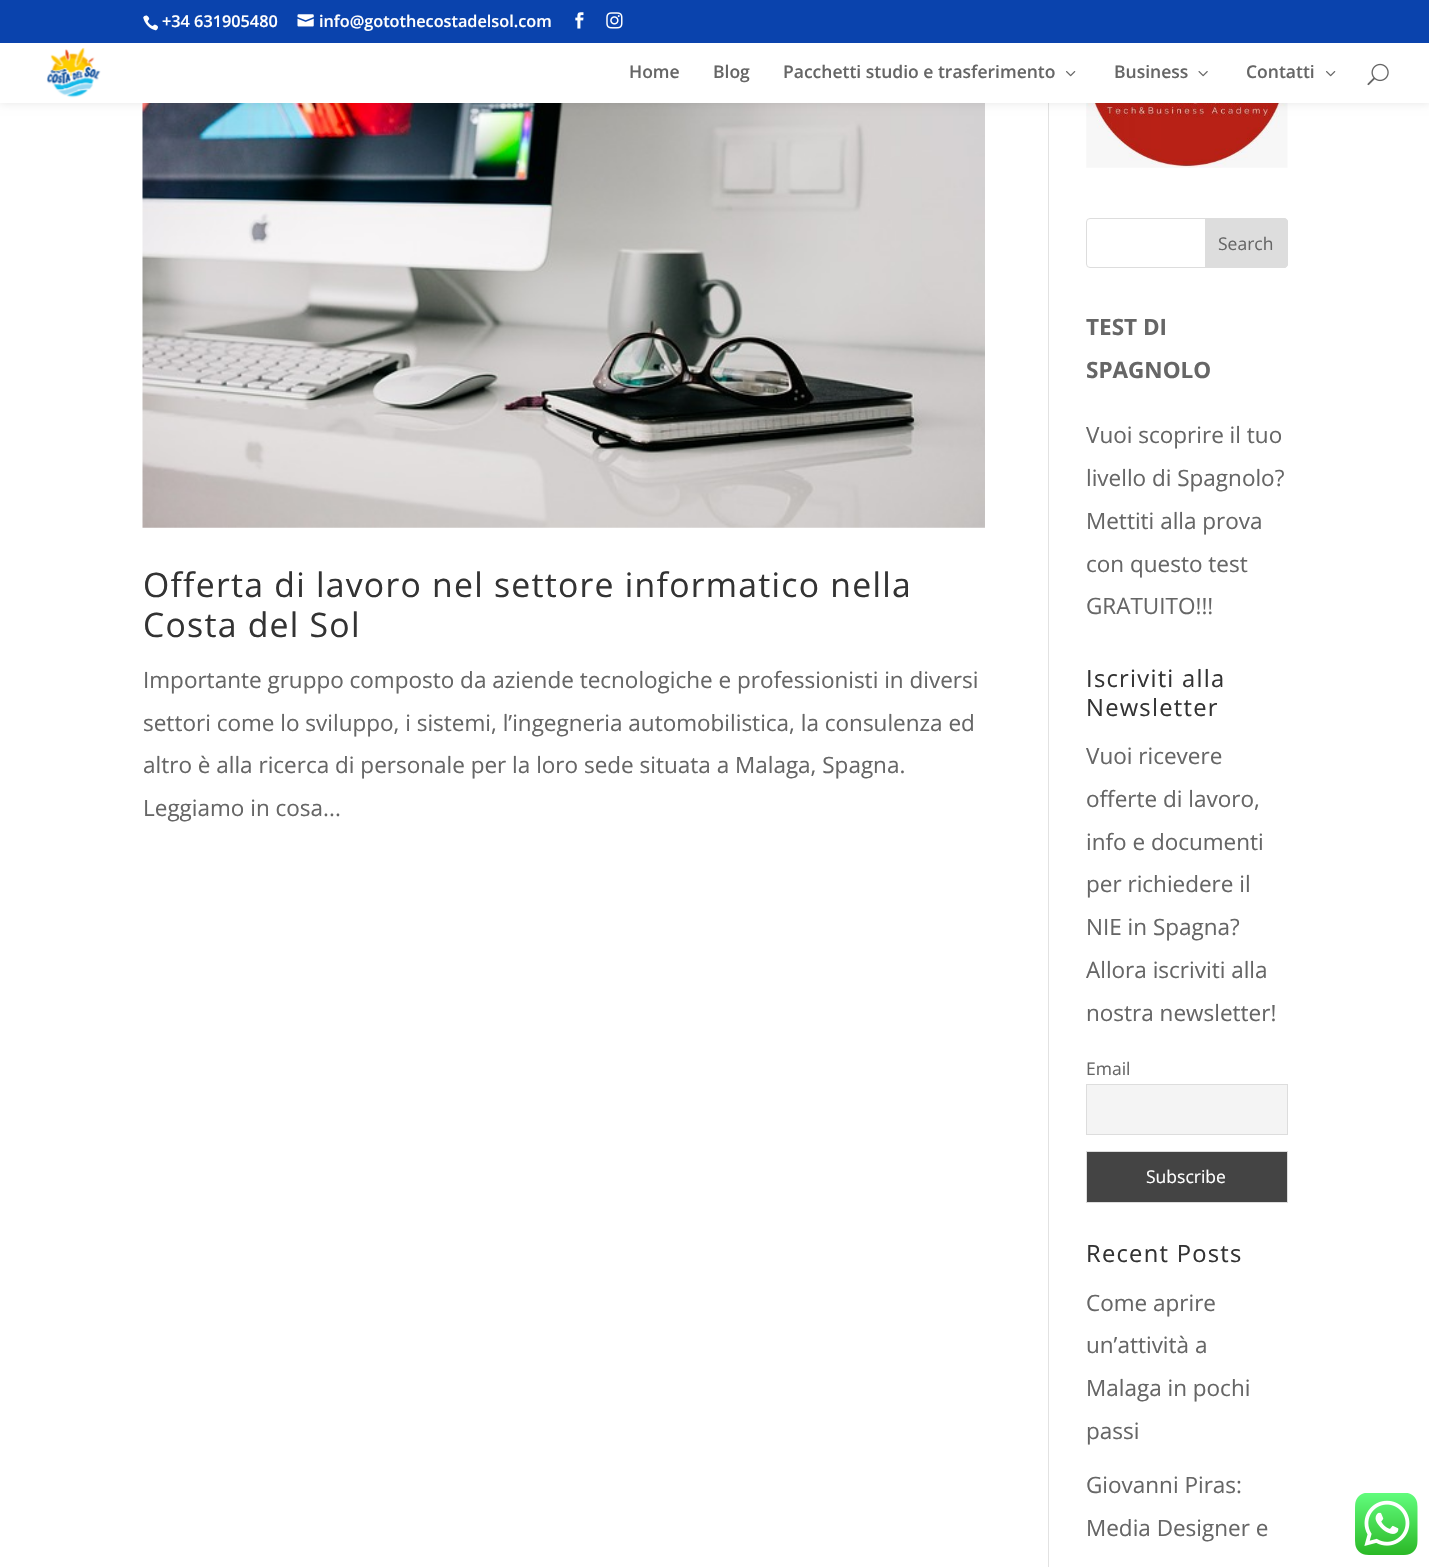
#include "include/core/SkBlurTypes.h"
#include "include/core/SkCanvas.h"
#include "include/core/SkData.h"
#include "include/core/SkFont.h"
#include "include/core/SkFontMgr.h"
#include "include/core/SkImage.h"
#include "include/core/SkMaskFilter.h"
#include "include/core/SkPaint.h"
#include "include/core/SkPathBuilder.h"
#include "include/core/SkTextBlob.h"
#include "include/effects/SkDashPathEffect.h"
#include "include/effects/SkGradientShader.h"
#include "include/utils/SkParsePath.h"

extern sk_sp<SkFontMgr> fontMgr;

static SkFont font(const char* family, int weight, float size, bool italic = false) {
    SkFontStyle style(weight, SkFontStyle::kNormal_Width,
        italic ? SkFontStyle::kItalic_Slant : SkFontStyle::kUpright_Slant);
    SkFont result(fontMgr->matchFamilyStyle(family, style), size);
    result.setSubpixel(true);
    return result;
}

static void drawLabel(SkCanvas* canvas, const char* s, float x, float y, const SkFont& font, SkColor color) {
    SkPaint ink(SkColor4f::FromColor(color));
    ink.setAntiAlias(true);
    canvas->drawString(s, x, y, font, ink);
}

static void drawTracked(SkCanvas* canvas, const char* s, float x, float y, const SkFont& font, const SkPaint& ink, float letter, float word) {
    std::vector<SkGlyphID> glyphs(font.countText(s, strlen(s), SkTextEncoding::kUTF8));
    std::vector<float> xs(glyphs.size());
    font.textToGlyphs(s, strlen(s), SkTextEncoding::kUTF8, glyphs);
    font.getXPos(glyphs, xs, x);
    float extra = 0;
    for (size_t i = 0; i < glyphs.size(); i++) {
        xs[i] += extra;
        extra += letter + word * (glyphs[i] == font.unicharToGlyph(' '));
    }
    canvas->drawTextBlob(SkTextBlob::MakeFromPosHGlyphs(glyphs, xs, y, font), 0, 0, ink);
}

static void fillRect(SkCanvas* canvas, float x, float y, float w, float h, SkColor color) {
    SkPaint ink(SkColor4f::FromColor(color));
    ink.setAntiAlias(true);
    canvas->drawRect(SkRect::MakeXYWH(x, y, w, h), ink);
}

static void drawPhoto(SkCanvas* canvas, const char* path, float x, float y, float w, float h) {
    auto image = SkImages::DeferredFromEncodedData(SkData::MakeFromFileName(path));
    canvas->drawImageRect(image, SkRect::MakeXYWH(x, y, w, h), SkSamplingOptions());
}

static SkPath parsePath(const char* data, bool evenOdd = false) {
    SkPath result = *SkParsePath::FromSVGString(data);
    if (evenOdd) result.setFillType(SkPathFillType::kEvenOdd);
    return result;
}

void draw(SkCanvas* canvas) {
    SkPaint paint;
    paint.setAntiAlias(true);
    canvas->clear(0xFFFFFFFF);
    fillRect(canvas, 1048, 103, 1, 1464, 0xFFE2E2E2);
    drawPhoto(canvas, "assets/img9.png", 142, 103, 843, 425);
    drawPhoto(canvas, "assets/img10.png", 1086, 103, 202, 65);
    paint.setColor(0x1A000000);
    paint.setMaskFilter(SkMaskFilter::MakeBlur(kNormal_SkBlurStyle, 4.5f));
    canvas->drawRect(SkRect::MakeXYWH(0, 43, 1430, 60), paint);
    paint.setMaskFilter(nullptr);
    fillRect(canvas, 0, 0, 1429, 43, 0xFF0A43AD);
    drawPhoto(canvas, "assets/img1.png", 143, 15, 15, 16);
    SkFont font1 = font("Open Sans", 600, 16.25f);
    drawLabel(canvas, "+34 631905480", 162, 27, font1, 0xFFFFFFFF);
    drawPhoto(canvas, "assets/img2.png", 297, 14, 17, 13);
    drawLabel(canvas, "info@gotothecostadelsol.com", 319, 27, font1, 0xFFFFFFFF);
    drawPhoto(canvas, "assets/img3.png", 575, 12, 9, 17);
    drawPhoto(canvas, "assets/img4.png", 606, 12, 17, 17);
    fillRect(canvas, 0, 43, 1429, 60, 0xFFFFFFFF);
    drawPhoto(canvas, "assets/img5.png", 46, 47, 55, 51);
    SkFont font2 = font("Open Sans", 600, 17.5f);
    drawLabel(canvas, "Home", 629, 78, font2, 0xFF666666);
    drawLabel(canvas, "Blog", 713, 78, font2, 0xFF666666);
    drawLabel(canvas, "Pacchetti studio e trasferimento", 783, 78, font2, 0xFF666666);
    drawPhoto(canvas, "assets/img6.png", 1066, 71, 10, 6);
    drawLabel(canvas, "Business", 1114, 78, font2, 0xFF666666);
    drawPhoto(canvas, "assets/img7.png", 1198, 71, 10, 6);
    drawLabel(canvas, "Contatti", 1246, 78, font2, 0xFF666666);
    drawPhoto(canvas, "assets/img6.png", 1326, 71, 10, 6);
    drawPhoto(canvas, "assets/img8.png", 1367, 63, 22, 23);
    SkFont font3 = font("Open Sans", 400, 33.75f);
    paint.setColor(0xFF333333);
    drawTracked(canvas, "Offerta di lavoro nel settore informatico nella", 143, 597, font3, paint, 1.25f, 0);
    drawTracked(canvas, "Costa del Sol", 143, 637, font3, paint, 1.25f, 0);
    SkFont font4 = font("Open Sans", 400, 22.5f);
    drawLabel(canvas, "Importante gruppo composto da aziende tecnologiche e professionisti in diversi", 143, 688, font4, 0xFF666666);
    drawLabel(canvas, "settori come lo sviluppo, i sistemi, l’ingegneria automobilistica, la consulenza ed", 143, 731, font4, 0xFF666666);
    drawLabel(canvas, "altro è alla ricerca di personale per la loro sede situata a Malaga, Spagna.", 143, 773, font4, 0xFF666666);
    drawLabel(canvas, "Leggiamo in cosa...", 143, 816, font4, 0xFF666666);
    paint.setStroke(true);
    paint.setStrokeWidth(1);
    paint.setColor(0xFFDDDDDD);
    canvas->drawRoundRect(SkRect::MakeXYWH(1086.5f, 218.5f, 201, 49), 3.5f, 3.5f, paint);
    paint.setStroke(false);
    canvas->drawPath(parsePath("M1205.5 218.5H1284C1286 218.5 1287.5 220 1287.5 222V264C1287.5 266 1286 267.5 1284 267.5H1205.5Z"), paint);
    paint.setStroke(true);
    canvas->drawPath(parsePath("M1205.5 218.5H1284C1286 218.5 1287.5 220 1287.5 222V264C1287.5 266 1286 267.5 1284 267.5H1205.5Z"), paint);
    SkFont font5 = font("Open Sans", 400, 17.5f);
    drawLabel(canvas, "Search", 1218, 250, font5, 0xFF666666);
    SkFont font6 = font("Open Sans", 700, 22.5f);
    drawLabel(canvas, "TEST DI", 1086, 335, font6, 0xFF666666);
    drawLabel(canvas, "SPAGNOLO", 1086, 378, font6, 0xFF666666);
    drawLabel(canvas, "Vuoi scoprire il tuo", 1086, 443, font4, 0xFF666666);
    drawLabel(canvas, "livello di Spagnolo?", 1086, 486, font4, 0xFF666666);
    drawLabel(canvas, "Mettiti alla prova", 1086, 529, font4, 0xFF666666);
    drawLabel(canvas, "con questo test", 1086, 572, font4, 0xFF666666);
    drawLabel(canvas, "GRATUITO!!!", 1086, 614, font4, 0xFF666666);
    SkFont font7 = font("Open Sans", 400, 23.75f);
    paint.setStroke(false);
    paint.setColor(0xFF333333);
    drawTracked(canvas, "Iscriviti alla", 1086, 687, font7, paint, 1.25f, 0);
    drawTracked(canvas, "Newsletter", 1086, 716, font7, paint, 1.25f, 0);
    drawLabel(canvas, "Vuoi ricevere", 1086, 764, font4, 0xFF666666);
    drawLabel(canvas, "offerte di lavoro,", 1086, 807, font4, 0xFF666666);
    drawLabel(canvas, "info e documenti", 1086, 850, font4, 0xFF666666);
    drawLabel(canvas, "per richiedere il", 1086, 892, font4, 0xFF666666);
    drawLabel(canvas, "NIE in Spagna?", 1086, 935, font4, 0xFF666666);
    drawLabel(canvas, "Allora iscriviti alla", 1086, 978, font4, 0xFF666666);
    drawLabel(canvas, "nostra newsletter!", 1086, 1021, font4, 0xFF666666);
    drawLabel(canvas, "Email", 1086, 1075, font5, 0xFF666666);
    paint.setColor(0xFFF4F4F4);
    canvas->drawRect(SkRect::MakeXYWH(1086.5f, 1084.5f, 201, 50), paint);
    paint.setStroke(true);
    paint.setColor(0xFFDDDDDD);
    canvas->drawRect(SkRect::MakeXYWH(1086.5f, 1084.5f, 201, 50), paint);
    paint.setStroke(false);
    paint.setColor(0xFF444444);
    canvas->drawRect(SkRect::MakeXYWH(1086.5f, 1151.5f, 201, 51), paint);
    paint.setStroke(true);
    paint.setColor(0xFFDDDDDD);
    canvas->drawRect(SkRect::MakeXYWH(1086.5f, 1151.5f, 201, 51), paint);
    drawLabel(canvas, "Subscribe", 1146, 1183, font5, 0xFFFFFFFF);
    paint.setStroke(false);
    paint.setColor(0xFF333333);
    drawTracked(canvas, "Recent Posts", 1086, 1262, font7, paint, 1.25f, 0);
    drawLabel(canvas, "Come aprire", 1086, 1311, font4, 0xFF666666);
    drawLabel(canvas, "un’attività a", 1086, 1353, font4, 0xFF666666);
    drawLabel(canvas, "Malaga in pochi", 1086, 1396, font4, 0xFF666666);
    drawLabel(canvas, "passi", 1086, 1439, font4, 0xFF666666);
    drawLabel(canvas, "Giovanni Piras:", 1086, 1493, font4, 0xFF666666);
    drawLabel(canvas, "Media Designer e", 1086, 1536, font4, 0xFF666666);
    drawPhoto(canvas, "assets/img11.png", 1355, 1493, 63, 62);
}
